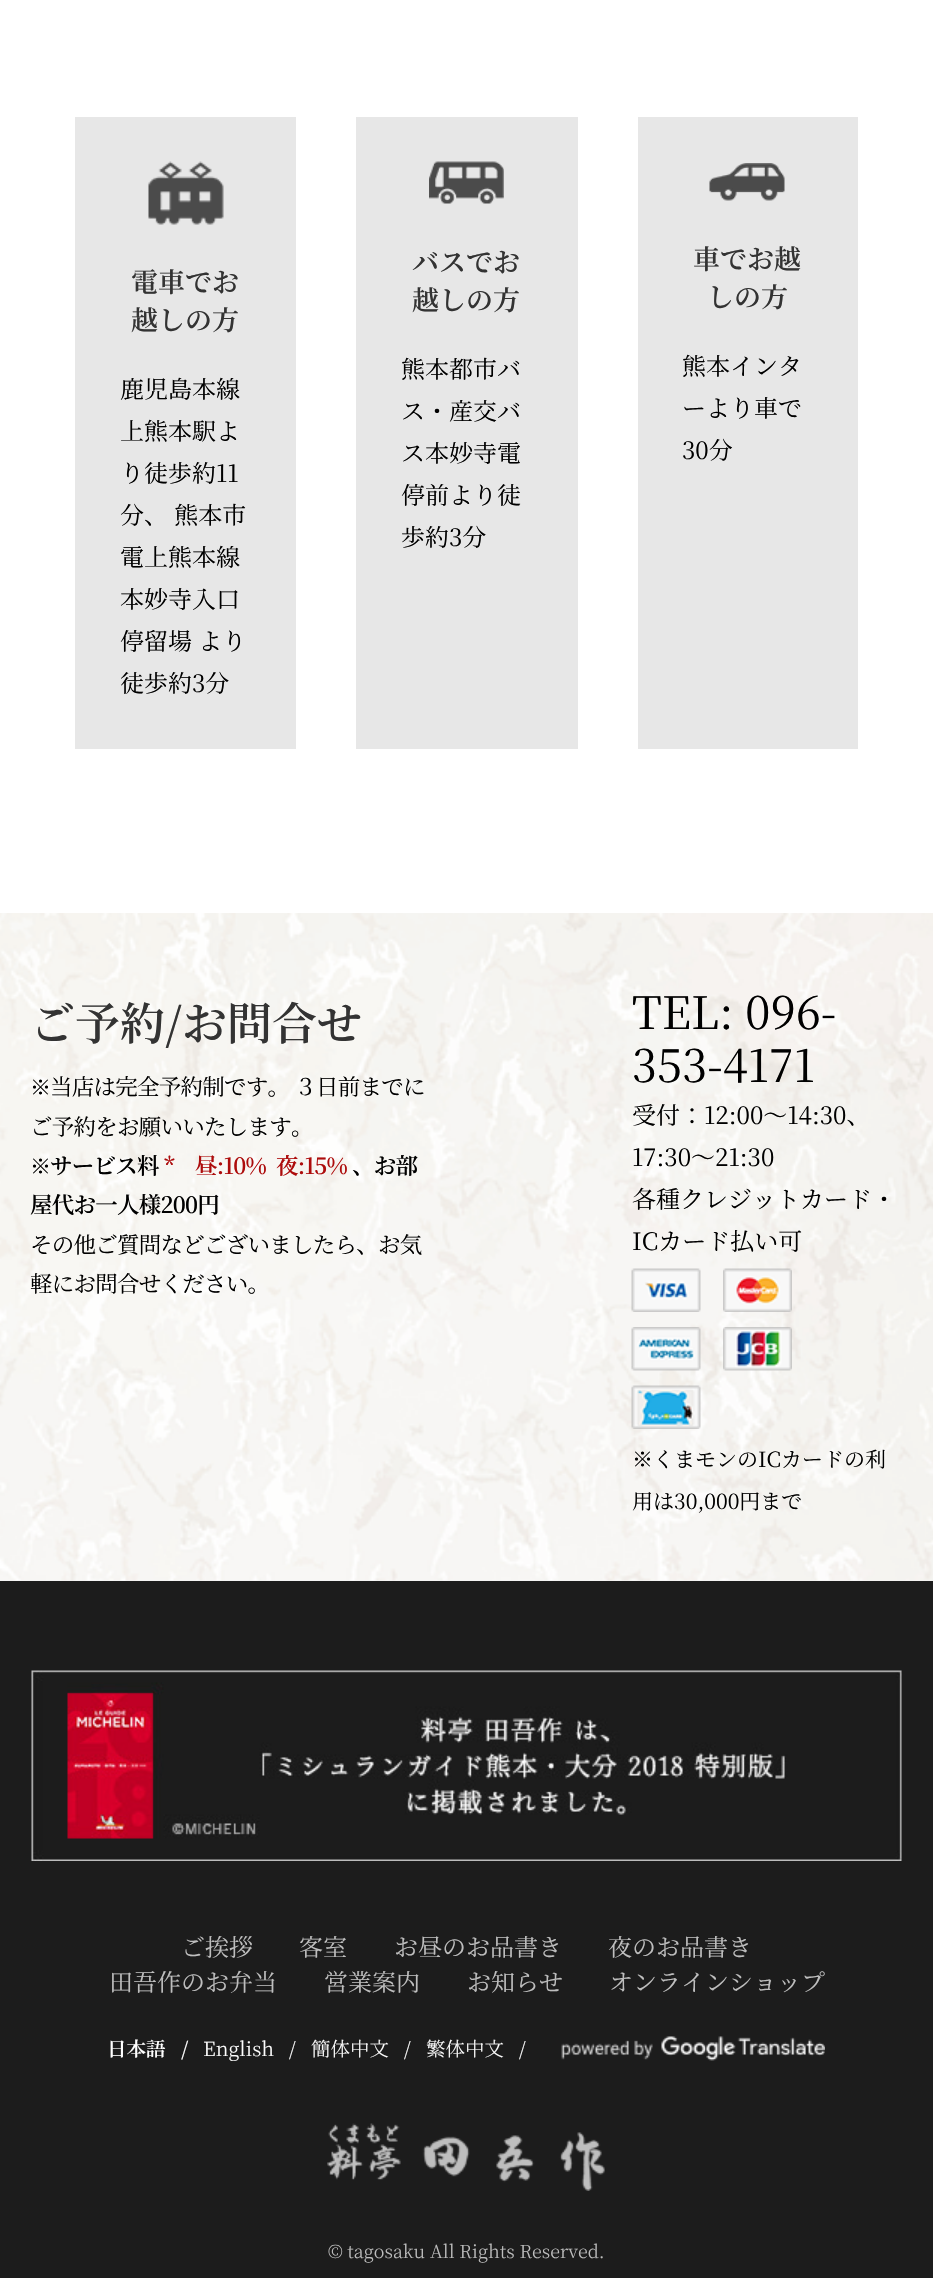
#include "include/core/SkBlurTypes.h"
#include "include/core/SkCanvas.h"
#include "include/core/SkData.h"
#include "include/core/SkFont.h"
#include "include/core/SkFontMgr.h"
#include "include/core/SkImage.h"
#include "include/core/SkMaskFilter.h"
#include "include/core/SkPaint.h"
#include "include/core/SkPathBuilder.h"
#include "include/core/SkTextBlob.h"
#include "include/effects/SkDashPathEffect.h"
#include "include/effects/SkGradientShader.h"
#include "include/utils/SkParsePath.h"

extern sk_sp<SkFontMgr> fontMgr;

static SkFont font(const char* family, int weight, float size, bool italic = false) {
    SkFontStyle style(weight, SkFontStyle::kNormal_Width,
        italic ? SkFontStyle::kItalic_Slant : SkFontStyle::kUpright_Slant);
    SkFont result(fontMgr->matchFamilyStyle(family, style), size);
    result.setSubpixel(true);
    return result;
}

static void drawLabel(SkCanvas* canvas, const char* s, float x, float y, const SkFont& font, SkColor color) {
    SkPaint ink(SkColor4f::FromColor(color));
    ink.setAntiAlias(true);
    canvas->drawString(s, x, y, font, ink);
}

static void drawTracked(SkCanvas* canvas, const char* s, float x, float y, const SkFont& font, const SkPaint& ink, float letter, float word) {
    std::vector<SkGlyphID> glyphs(font.countText(s, strlen(s), SkTextEncoding::kUTF8));
    std::vector<float> xs(glyphs.size());
    font.textToGlyphs(s, strlen(s), SkTextEncoding::kUTF8, glyphs);
    font.getXPos(glyphs, xs, x);
    float extra = 0;
    for (size_t i = 0; i < glyphs.size(); i++) {
        xs[i] += extra;
        extra += letter + word * (glyphs[i] == font.unicharToGlyph(' '));
    }
    canvas->drawTextBlob(SkTextBlob::MakeFromPosHGlyphs(glyphs, xs, y, font), 0, 0, ink);
}

static void fillRect(SkCanvas* canvas, float x, float y, float w, float h, SkColor color) {
    SkPaint ink(SkColor4f::FromColor(color));
    ink.setAntiAlias(true);
    canvas->drawRect(SkRect::MakeXYWH(x, y, w, h), ink);
}

static void drawPhoto(SkCanvas* canvas, const char* path, float x, float y, float w, float h) {
    auto image = SkImages::DeferredFromEncodedData(SkData::MakeFromFileName(path));
    canvas->drawImageRect(image, SkRect::MakeXYWH(x, y, w, h), SkSamplingOptions());
}

void draw(SkCanvas* canvas) {
    SkPaint paint;
    paint.setAntiAlias(true);
    canvas->clear(0xFFF2F2F2);
    fillRect(canvas, 0, 0, 933, 913, 0xFFFFFFFF);
    fillRect(canvas, 75, 117, 221, 632, 0xFFE7E7E7);
    drawPhoto(canvas, "assets/img1.png", 148, 161, 76, 64);
    SkFont font1 = font("Noto Serif JP", 600, 27);
    drawLabel(canvas, "電車でお", 131, 292, font1, 0xFF333333);
    drawLabel(canvas, "越しの方", 131, 330, font1, 0xFF333333);
    SkFont font2 = font("Noto Serif JP", 400, 24);
    drawLabel(canvas, "鹿児島本線", 120, 398, font2, 0xFF000000);
    drawLabel(canvas, "上熊本駅よ", 120, 440, font2, 0xFF000000);
    drawLabel(canvas, "り徒歩約11", 120, 482, font2, 0xFF000000);
    drawLabel(canvas, "分、 熊本市", 120, 524, font2, 0xFF000000);
    drawLabel(canvas, "電上熊本線", 120, 566, font2, 0xFF000000);
    drawLabel(canvas, "本妙寺入口", 120, 608, font2, 0xFF000000);
    drawLabel(canvas, "停留場 より", 120, 650, font2, 0xFF000000);
    drawLabel(canvas, "徒歩約3分", 120, 692, font2, 0xFF000000);
    fillRect(canvas, 356, 117, 222, 632, 0xFFE7E7E7);
    drawPhoto(canvas, "assets/img2.png", 429, 161, 75, 43);
    drawLabel(canvas, "バスでお", 412, 272, font1, 0xFF333333);
    drawLabel(canvas, "越しの方", 412, 310, font1, 0xFF333333);
    drawLabel(canvas, "熊本都市バ", 401, 378, font2, 0xFF000000);
    drawLabel(canvas, "ス・産交バ", 401, 420, font2, 0xFF000000);
    drawLabel(canvas, "ス本妙寺電", 401, 462, font2, 0xFF000000);
    drawLabel(canvas, "停前より徒", 401, 504, font2, 0xFF000000);
    drawLabel(canvas, "歩約3分", 401, 546, font2, 0xFF000000);
    fillRect(canvas, 638, 117, 220, 632, 0xFFE7E7E7);
    drawPhoto(canvas, "assets/img3.png", 709, 163, 76, 38);
    drawLabel(canvas, "車でお越", 693, 269, font1, 0xFF333333);
    drawLabel(canvas, "しの方", 707, 307, font1, 0xFF333333);
    drawLabel(canvas, "熊本インタ", 682, 375, font2, 0xFF000000);
    drawLabel(canvas, "ーより車で", 682, 417, font2, 0xFF000000);
    drawLabel(canvas, "30分", 682, 459, font2, 0xFF000000);
    drawPhoto(canvas, "assets/img4.png", 0, 913, 933, 668);
    SkFont font3 = font("Noto Serif JP", 600, 45);
    drawLabel(canvas, "ご予約/お問合せ", 30, 1040, font3, 0xFF333333);
    SkFont font4 = font("Noto Serif JP", 400, 21);
    paint.setColor(0xFF000000);
    drawTracked(canvas, "※", 30, 1095, font4, paint, -0.75f, 0);
    SkFont font5 = font("Noto Serif JP", 400, 22.5f);
    drawTracked(canvas, "当店は完全予約制です。 ３日前までに", 50, 1095, font5, paint, -0.75f, 0);
    drawTracked(canvas, "ご予約をお願いいたします。", 30, 1135, font5, paint, -0.75f, 0);
    drawTracked(canvas, "※", 30, 1174, font4, paint, -0.75f, 0);
    SkFont font6 = font("Noto Serif JP", 600, 22.5f);
    drawTracked(canvas, "サービス料", 50, 1174, font6, paint, -0.75f, 0);
    paint.setColor(0xFFAD0C0C);
    drawTracked(canvas, "*", 164, 1174, font6, paint, -0.75f, 0);
    drawTracked(canvas, "昼:10%  夜:15%", 195, 1174, font6, paint, -0.75f, 0);
    paint.setColor(0xFF000000);
    drawTracked(canvas, "、お部", 352, 1174, font6, paint, -0.75f, 0);
    drawTracked(canvas, "屋代お一人様200円", 30, 1213, font6, paint, -0.75f, 0);
    drawTracked(canvas, "その他ご質問などございましたら、お気", 30, 1253, font5, paint, -0.75f, 0);
    drawTracked(canvas, "軽にお問合せください。", 30, 1292, font5, paint, -0.75f, 0);
    SkFont font7 = font("Noto Serif JP", 400, 45);
    drawLabel(canvas, "TEL: 096-", 632, 1029, font7, 0xFF000000);
    drawLabel(canvas, "353-4171", 632, 1082, font7, 0xFF000000);
    drawLabel(canvas, "受付：12:00～14:30、", 632, 1124, font2, 0xFF000000);
    drawLabel(canvas, "17:30～21:30", 632, 1166, font2, 0xFF000000);
    drawLabel(canvas, "各種クレジットカード・", 632, 1208, font2, 0xFF000000);
    drawLabel(canvas, "ICカード払い可", 632, 1250, font2, 0xFF000000);
    drawPhoto(canvas, "assets/img5.png", 631, 1268, 70, 44);
    drawPhoto(canvas, "assets/img6.png", 723, 1268, 69, 44);
    drawPhoto(canvas, "assets/img7.png", 631, 1327, 70, 44);
    drawPhoto(canvas, "assets/img8.png", 723, 1327, 69, 44);
    drawPhoto(canvas, "assets/img9.png", 631, 1385, 70, 44);
    drawLabel(canvas, "※くまモンのICカードの利", 632, 1467, font4, 0xFF000000);
    drawLabel(canvas, "用は30,000円まで", 632, 1509, font4, 0xFF000000);
    fillRect(canvas, 0, 1581, 933, 697, 0xFF1C1C1C);
    drawPhoto(canvas, "assets/img10.png", 31, 1670, 871, 191);
    drawLabel(canvas, "ご挨拶", 181, 1956, font2, 0xFFBEBEBE);
    drawLabel(canvas, "客室", 299, 1956, font2, 0xFFBEBEBE);
    drawLabel(canvas, "お昼のお品書き", 394, 1956, font2, 0xFFBEBEBE);
    drawLabel(canvas, "夜のお品書き", 608, 1956, font2, 0xFFBEBEBE);
    drawLabel(canvas, "田吾作のお弁当", 109, 1991, font2, 0xFFBEBEBE);
    drawLabel(canvas, "営業案内", 324, 1991, font2, 0xFFBEBEBE);
    drawLabel(canvas, "お知らせ", 467, 1991, font2, 0xFFBEBEBE);
    drawLabel(canvas, "オンラインショップ", 609, 1991, font2, 0xFFBEBEBE);
    SkFont font8 = font("Noto Serif JP", 600, 19.5f);
    drawLabel(canvas, "日本語", 107, 2056, font8, 0xFFFFFFFF);
    drawLabel(canvas, "/", 181, 2056, font8, 0xFFFFFFFF);
    SkFont font9 = font("Noto Serif JP", 300, 19.5f);
    drawLabel(canvas, "English", 203, 2056, font9, 0xFFFFFFFF);
    drawLabel(canvas, "/", 289, 2056, font9, 0xFFFFFFFF);
    drawLabel(canvas, "簡体中文", 311, 2056, font9, 0xFFFFFFFF);
    drawLabel(canvas, "/", 404, 2056, font9, 0xFFFFFFFF);
    drawLabel(canvas, "繁体中文", 426, 2056, font9, 0xFFFFFFFF);
    drawLabel(canvas, "/", 519, 2056, font9, 0xFFFFFFFF);
    drawPhoto(canvas, "assets/img11.png", 561, 2036, 264, 25);
    drawPhoto(canvas, "assets/img12.png", 327, 2123, 278, 68);
    SkFont font10 = font("Noto Serif JP", 300, 18);
    drawLabel(canvas, "© tagosaku All Rights Reserved.", 328, 2258, font10, 0xFFBEBEBE);
}
